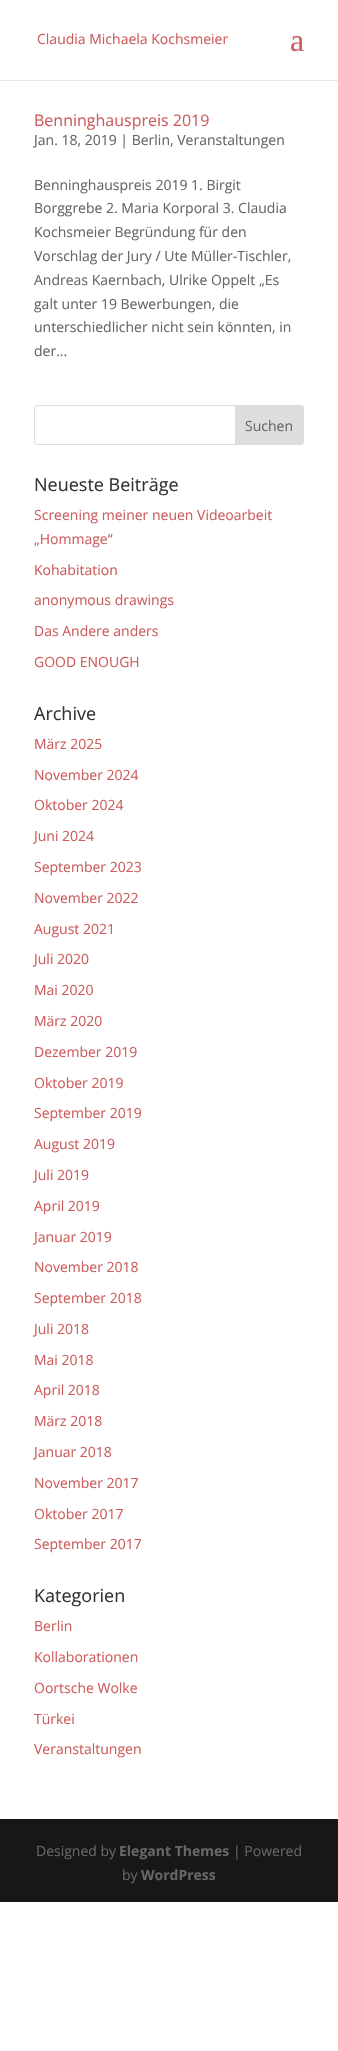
#include "include/core/SkBlurTypes.h"
#include "include/core/SkCanvas.h"
#include "include/core/SkData.h"
#include "include/core/SkFont.h"
#include "include/core/SkFontMgr.h"
#include "include/core/SkImage.h"
#include "include/core/SkMaskFilter.h"
#include "include/core/SkPaint.h"
#include "include/core/SkPathBuilder.h"
#include "include/core/SkTextBlob.h"
#include "include/effects/SkDashPathEffect.h"
#include "include/effects/SkGradientShader.h"
#include "include/utils/SkParsePath.h"

extern sk_sp<SkFontMgr> fontMgr;

static SkFont font(const char* family, int weight, float size, bool italic = false) {
    SkFontStyle style(weight, SkFontStyle::kNormal_Width,
        italic ? SkFontStyle::kItalic_Slant : SkFontStyle::kUpright_Slant);
    SkFont result(fontMgr->matchFamilyStyle(family, style), size);
    result.setSubpixel(true);
    return result;
}

static void drawLabel(SkCanvas* canvas, const char* s, float x, float y, const SkFont& font, SkColor color) {
    SkPaint ink(SkColor4f::FromColor(color));
    ink.setAntiAlias(true);
    canvas->drawString(s, x, y, font, ink);
}

static void fillRect(SkCanvas* canvas, float x, float y, float w, float h, SkColor color) {
    SkPaint ink(SkColor4f::FromColor(color));
    ink.setAntiAlias(true);
    canvas->drawRect(SkRect::MakeXYWH(x, y, w, h), ink);
}

static SkPath parsePath(const char* data, bool evenOdd = false) {
    SkPath result = *SkParsePath::FromSVGString(data);
    if (evenOdd) result.setFillType(SkPathFillType::kEvenOdd);
    return result;
}

void draw(SkCanvas* canvas) {
    SkPaint paint;
    paint.setAntiAlias(true);
    canvas->clear(0xFFFFFFFF);
    fillRect(canvas, 0, 80, 338, 1, 0xFFE6E6E6);
    SkFont font1 = font("Open Sans", 400, 14);
    drawLabel(canvas, "Claudia Michaela Kochsmeier", 37, 44, font1, 0xFFCD5C5C);
    SkFont font2 = font("Liberation Serif", 400, 32);
    drawLabel(canvas, "a", 290, 51, font2, 0xFFCD5C5C);
    SkFont font3 = font("Open Sans", 400, 16);
    drawLabel(canvas, "Benninghauspreis 2019", 34, 126, font3, 0xFFCD5C5C);
    drawLabel(canvas, "Jan. 18, 2019 | Berlin, Veranstaltungen", 34, 145, font1, 0xFF666666);
    drawLabel(canvas, "Benninghauspreis 2019 1. Birgit", 34, 190, font1, 0xFF666666);
    drawLabel(canvas, "Borggrebe 2. Maria Korporal 3. Claudia", 34, 213, font1, 0xFF666666);
    drawLabel(canvas, "Kochsmeier Begründung für den", 34, 237, font1, 0xFF666666);
    drawLabel(canvas, "Vorschlag der Jury / Ute Müller-Tischler,", 34, 261, font1, 0xFF666666);
    drawLabel(canvas, "Andreas Kaernbach, Ulrike Oppelt „Es", 34, 285, font1, 0xFF666666);
    drawLabel(canvas, "galt unter 19 Bewerbungen, die", 34, 309, font1, 0xFF666666);
    drawLabel(canvas, "unterschiedlicher nicht sein könnten, in", 34, 332, font1, 0xFF666666);
    drawLabel(canvas, "der...", 34, 356, font1, 0xFF666666);
    paint.setStroke(true);
    paint.setStrokeWidth(1);
    paint.setColor(0xFFDDDDDD);
    canvas->drawRoundRect(SkRect::MakeXYWH(34.5f, 405.5f, 269, 39), 2.5f, 2.5f, paint);
    paint.setStroke(false);
    canvas->drawPath(parsePath("M235.5 405.5H301C302.5 405.5 303.5 406.5 303.5 408V442C303.5 443.5 302.5 444.5 301 444.5H235.5Z"), paint);
    paint.setStroke(true);
    canvas->drawPath(parsePath("M235.5 405.5H301C302.5 405.5 303.5 406.5 303.5 408V442C303.5 443.5 302.5 444.5 301 444.5H235.5Z"), paint);
    drawLabel(canvas, "Suchen", 245, 431, font1, 0xFF666666);
    SkFont font4 = font("Open Sans", 400, 18);
    drawLabel(canvas, "Neueste Beiträge", 34, 491, font4, 0xFF333333);
    drawLabel(canvas, "Screening meiner neuen Videoarbeit", 34, 520, font1, 0xFFCD5C5C);
    drawLabel(canvas, "„Hommage“", 34, 544, font1, 0xFFCD5C5C);
    drawLabel(canvas, "Kohabitation", 34, 575, font1, 0xFFCD5C5C);
    drawLabel(canvas, "anonymous drawings", 34, 605, font1, 0xFFCD5C5C);
    drawLabel(canvas, "Das Andere anders", 34, 636, font1, 0xFFCD5C5C);
    drawLabel(canvas, "GOOD ENOUGH", 34, 667, font1, 0xFFCD5C5C);
    drawLabel(canvas, "Archive", 34, 720, font4, 0xFF333333);
    drawLabel(canvas, "März 2025", 34, 749, font1, 0xFFCD5C5C);
    drawLabel(canvas, "November 2024", 34, 780, font1, 0xFFCD5C5C);
    drawLabel(canvas, "Oktober 2024", 34, 810, font1, 0xFFCD5C5C);
    drawLabel(canvas, "Juni 2024", 34, 841, font1, 0xFFCD5C5C);
    drawLabel(canvas, "September 2023", 34, 872, font1, 0xFFCD5C5C);
    drawLabel(canvas, "November 2022", 34, 903, font1, 0xFFCD5C5C);
    drawLabel(canvas, "August 2021", 34, 934, font1, 0xFFCD5C5C);
    drawLabel(canvas, "Juli 2020", 34, 964, font1, 0xFFCD5C5C);
    drawLabel(canvas, "Mai 2020", 34, 995, font1, 0xFFCD5C5C);
    drawLabel(canvas, "März 2020", 34, 1026, font1, 0xFFCD5C5C);
    drawLabel(canvas, "Dezember 2019", 34, 1057, font1, 0xFFCD5C5C);
    drawLabel(canvas, "Oktober 2019", 34, 1088, font1, 0xFFCD5C5C);
    drawLabel(canvas, "September 2019", 34, 1118, font1, 0xFFCD5C5C);
    drawLabel(canvas, "August 2019", 34, 1149, font1, 0xFFCD5C5C);
    drawLabel(canvas, "Juli 2019", 34, 1180, font1, 0xFFCD5C5C);
    drawLabel(canvas, "April 2019", 34, 1211, font1, 0xFFCD5C5C);
    drawLabel(canvas, "Januar 2019", 34, 1242, font1, 0xFFCD5C5C);
    drawLabel(canvas, "November 2018", 34, 1272, font1, 0xFFCD5C5C);
    drawLabel(canvas, "September 2018", 34, 1303, font1, 0xFFCD5C5C);
    drawLabel(canvas, "Juli 2018", 34, 1334, font1, 0xFFCD5C5C);
    drawLabel(canvas, "Mai 2018", 34, 1365, font1, 0xFFCD5C5C);
    drawLabel(canvas, "April 2018", 34, 1395, font1, 0xFFCD5C5C);
    drawLabel(canvas, "März 2018", 34, 1426, font1, 0xFFCD5C5C);
    drawLabel(canvas, "Januar 2018", 34, 1457, font1, 0xFFCD5C5C);
    drawLabel(canvas, "November 2017", 34, 1488, font1, 0xFFCD5C5C);
    drawLabel(canvas, "Oktober 2017", 34, 1519, font1, 0xFFCD5C5C);
    drawLabel(canvas, "September 2017", 34, 1549, font1, 0xFFCD5C5C);
    drawLabel(canvas, "Kategorien", 34, 1602, font4, 0xFF333333);
    drawLabel(canvas, "Berlin", 34, 1631, font1, 0xFFCD5C5C);
    drawLabel(canvas, "Kollaborationen", 34, 1662, font1, 0xFFCD5C5C);
    drawLabel(canvas, "Oortsche Wolke", 34, 1693, font1, 0xFFCD5C5C);
    drawLabel(canvas, "Türkei", 34, 1724, font1, 0xFFCD5C5C);
    drawLabel(canvas, "Veranstaltungen", 34, 1754, font1, 0xFFCD5C5C);
    fillRect(canvas, 0, 1819, 338, 83, 0xFF171717);
    drawLabel(canvas, "Designed by", 36, 1856, font1, 0xFF666666);
    SkFont font5 = font("Open Sans", 700, 14);
    drawLabel(canvas, "Elegant Themes", 119, 1856, font5, 0xFF666666);
    drawLabel(canvas, "| Powered", 233, 1856, font1, 0xFF666666);
    drawLabel(canvas, "by", 122, 1880, font1, 0xFF666666);
    drawLabel(canvas, "WordPress", 141, 1880, font5, 0xFF666666);
}
